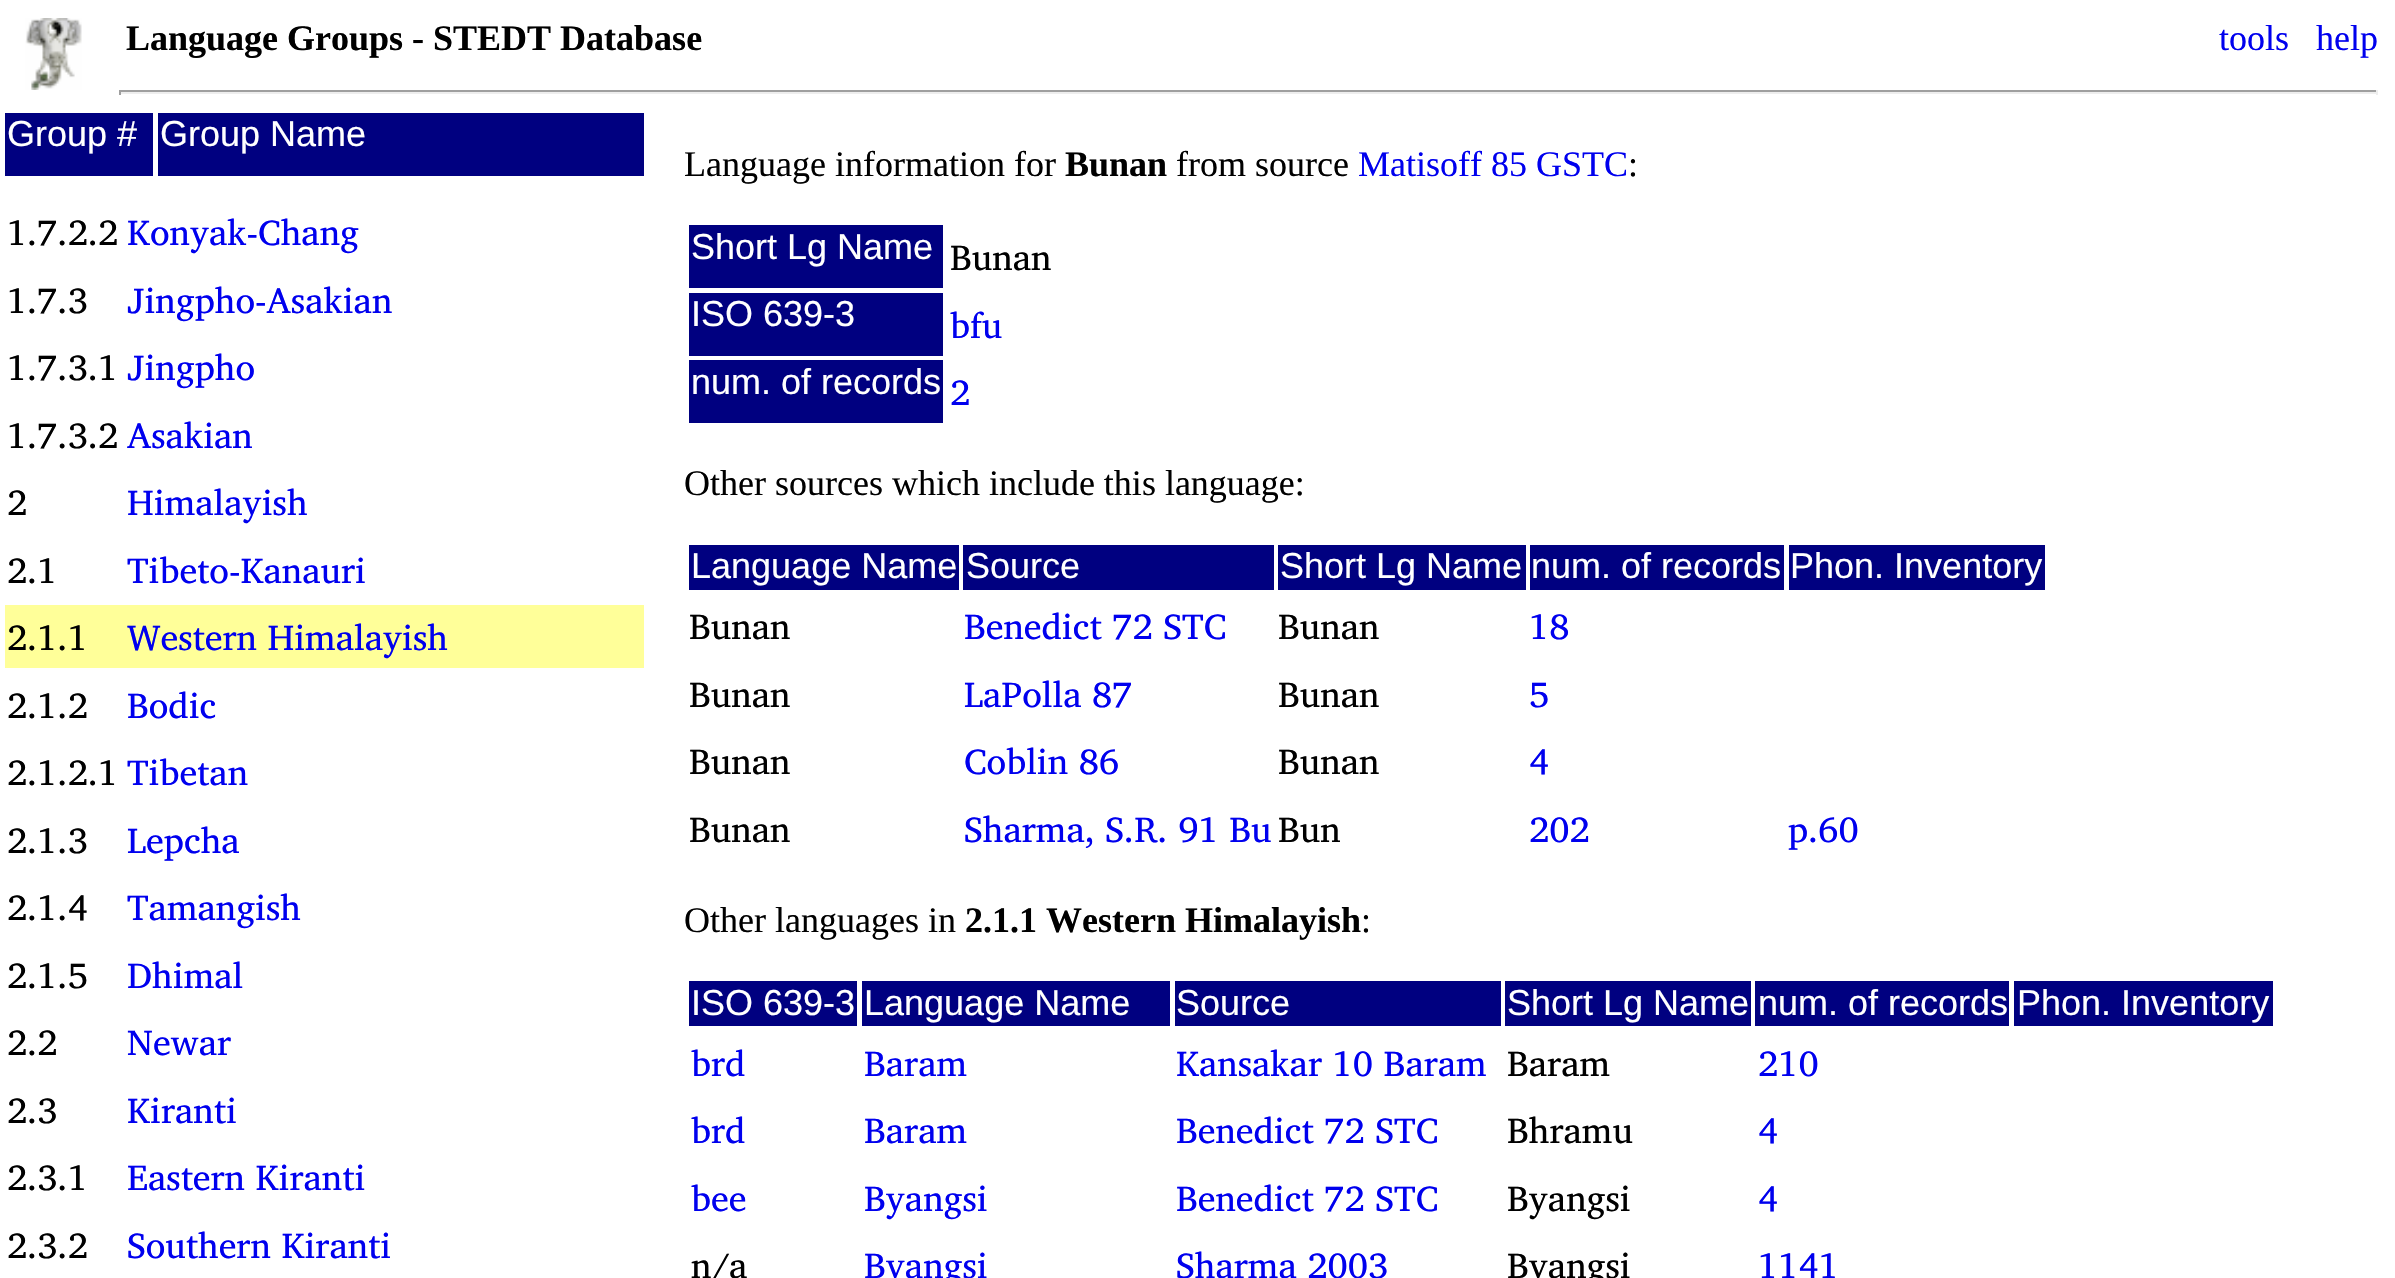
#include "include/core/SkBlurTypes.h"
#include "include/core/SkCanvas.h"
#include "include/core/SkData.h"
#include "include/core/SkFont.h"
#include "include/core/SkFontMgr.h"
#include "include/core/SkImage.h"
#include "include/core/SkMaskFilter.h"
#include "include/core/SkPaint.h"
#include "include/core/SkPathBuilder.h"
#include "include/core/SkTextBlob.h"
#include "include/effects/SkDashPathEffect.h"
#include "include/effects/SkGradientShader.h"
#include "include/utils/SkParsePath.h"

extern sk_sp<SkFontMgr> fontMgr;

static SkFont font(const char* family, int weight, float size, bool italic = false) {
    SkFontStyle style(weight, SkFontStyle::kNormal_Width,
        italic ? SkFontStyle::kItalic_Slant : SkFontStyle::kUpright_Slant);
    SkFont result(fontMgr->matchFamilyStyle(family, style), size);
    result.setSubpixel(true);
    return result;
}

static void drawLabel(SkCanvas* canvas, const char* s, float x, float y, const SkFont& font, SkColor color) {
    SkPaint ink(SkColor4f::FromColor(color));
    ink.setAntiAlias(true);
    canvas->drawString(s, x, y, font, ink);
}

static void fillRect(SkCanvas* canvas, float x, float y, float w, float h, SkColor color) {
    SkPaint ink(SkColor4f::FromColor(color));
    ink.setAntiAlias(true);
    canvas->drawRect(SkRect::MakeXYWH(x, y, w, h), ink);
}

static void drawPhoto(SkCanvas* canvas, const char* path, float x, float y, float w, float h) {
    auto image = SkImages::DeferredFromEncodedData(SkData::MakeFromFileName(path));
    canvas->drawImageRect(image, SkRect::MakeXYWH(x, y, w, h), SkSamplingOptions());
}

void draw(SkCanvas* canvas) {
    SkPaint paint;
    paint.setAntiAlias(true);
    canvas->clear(0xFFFFFFFF);
    drawPhoto(canvas, "assets/img1.png", 25, 18, 57, 72);
    SkFont font1 = font("Liberation Serif", 700, 36);
    drawLabel(canvas, "Language Groups - STEDT Database", 126, 50, font1, 0xFF000000);
    SkFont font2 = font("Liberation Serif", 400, 36);
    drawLabel(canvas, "tools", 2219, 50, font2, 0xFF0000EE);
    drawLabel(canvas, "help", 2316, 50, font2, 0xFF0000EE);
    fillRect(canvas, 119, 90, 2259, 2, 0xFF9F9F9F);
    fillRect(canvas, 2376, 90, 2, 5, 0xFFEEEEEE);
    fillRect(canvas, 119, 92, 2259, 2, 0xFFEEEEEE);
    fillRect(canvas, 119, 90, 2, 5, 0xFF9F9F9F);
    fillRect(canvas, 5, 113, 148, 63, 0xFF000080);
    SkFont font3 = font("Liberation Sans", 400, 36);
    drawLabel(canvas, "Group #", 7, 146, font3, 0xFFFFFFFF);
    fillRect(canvas, 158, 113, 486, 63, 0xFF000080);
    drawLabel(canvas, "Group Name", 160, 146, font3, 0xFFFFFFFF);
    SkFont font4 = font("Charis SIL", 400, 36);
    drawLabel(canvas, "1.7.2.2", 7, 245, font4, 0xFF000000);
    drawLabel(canvas, "Konyak-Chang", 127, 245, font4, 0xFF0000EE);
    drawLabel(canvas, "1.7.3", 7, 313, font4, 0xFF000000);
    drawLabel(canvas, "Jingpho-Asakian", 127, 313, font4, 0xFF0000EE);
    drawLabel(canvas, "1.7.3.1", 7, 380, font4, 0xFF000000);
    drawLabel(canvas, "Jingpho", 127, 380, font4, 0xFF0000EE);
    drawLabel(canvas, "1.7.3.2", 7, 448, font4, 0xFF000000);
    drawLabel(canvas, "Asakian", 127, 448, font4, 0xFF0000EE);
    drawLabel(canvas, "2", 7, 515, font4, 0xFF000000);
    drawLabel(canvas, "Himalayish", 127, 515, font4, 0xFF0000EE);
    drawLabel(canvas, "2.1", 7, 583, font4, 0xFF000000);
    drawLabel(canvas, "Tibeto-Kanauri", 127, 583, font4, 0xFF0000EE);
    fillRect(canvas, 5, 605, 639, 63, 0xFFFFFF99);
    drawLabel(canvas, "2.1.1", 7, 650, font4, 0xFF000000);
    drawLabel(canvas, "Western Himalayish", 127, 650, font4, 0xFF0000EE);
    drawLabel(canvas, "2.1.2", 7, 718, font4, 0xFF000000);
    drawLabel(canvas, "Bodic", 127, 718, font4, 0xFF0000EE);
    drawLabel(canvas, "2.1.2.1", 7, 785, font4, 0xFF000000);
    drawLabel(canvas, "Tibetan", 127, 785, font4, 0xFF0000EE);
    drawLabel(canvas, "2.1.3", 7, 853, font4, 0xFF000000);
    drawLabel(canvas, "Lepcha", 127, 853, font4, 0xFF0000EE);
    drawLabel(canvas, "2.1.4", 7, 920, font4, 0xFF000000);
    drawLabel(canvas, "Tamangish", 127, 920, font4, 0xFF0000EE);
    drawLabel(canvas, "2.1.5", 7, 988, font4, 0xFF000000);
    drawLabel(canvas, "Dhimal", 127, 988, font4, 0xFF0000EE);
    drawLabel(canvas, "2.2", 7, 1055, font4, 0xFF000000);
    drawLabel(canvas, "Newar", 127, 1055, font4, 0xFF0000EE);
    drawLabel(canvas, "2.3", 7, 1123, font4, 0xFF000000);
    drawLabel(canvas, "Kiranti", 127, 1123, font4, 0xFF0000EE);
    drawLabel(canvas, "2.3.1", 7, 1190, font4, 0xFF000000);
    drawLabel(canvas, "Eastern Kiranti", 127, 1190, font4, 0xFF0000EE);
    drawLabel(canvas, "2.3.2", 7, 1258, font4, 0xFF000000);
    drawLabel(canvas, "Southern Kiranti", 127, 1258, font4, 0xFF0000EE);
    drawLabel(canvas, "Language information for", 684, 176, font2, 0xFF000000);
    drawLabel(canvas, "Bunan", 1065, 176, font1, 0xFF000000);
    drawLabel(canvas, "from source", 1176, 176, font2, 0xFF000000);
    drawLabel(canvas, "Matisoff 85 GSTC", 1358, 176, font2, 0xFF0000EE);
    drawLabel(canvas, ":", 1628, 176, font2, 0xFF000000);
    fillRect(canvas, 689, 225, 254, 63, 0xFF000080);
    drawLabel(canvas, "Short Lg Name", 691, 259, font3, 0xFFFFFFFF);
    drawLabel(canvas, "Bunan", 950, 270, font4, 0xFF000000);
    fillRect(canvas, 689, 293, 254, 63, 0xFF000080);
    drawLabel(canvas, "ISO 639-3", 691, 326, font3, 0xFFFFFFFF);
    drawLabel(canvas, "bfu", 950, 338, font4, 0xFF0000EE);
    fillRect(canvas, 689, 360, 254, 63, 0xFF000080);
    drawLabel(canvas, "num. of records", 691, 394, font3, 0xFFFFFFFF);
    drawLabel(canvas, "2", 950, 405, font4, 0xFF0000EE);
    drawLabel(canvas, "Other sources which include this language:", 684, 495, font2, 0xFF000000);
    fillRect(canvas, 689, 545, 270, 45, 0xFF000080);
    drawLabel(canvas, "Language Name", 691, 578, font3, 0xFFFFFFFF);
    fillRect(canvas, 963, 545, 311, 45, 0xFF000080);
    drawLabel(canvas, "Source", 966, 578, font3, 0xFFFFFFFF);
    fillRect(canvas, 1278, 545, 248, 45, 0xFF000080);
    drawLabel(canvas, "Short Lg Name", 1280, 578, font3, 0xFFFFFFFF);
    fillRect(canvas, 1530, 545, 254, 45, 0xFF000080);
    drawLabel(canvas, "num. of records", 1531, 578, font3, 0xFFFFFFFF);
    fillRect(canvas, 1789, 545, 256, 45, 0xFF000080);
    drawLabel(canvas, "Phon. Inventory", 1790, 578, font3, 0xFFFFFFFF);
    drawLabel(canvas, "Bunan", 689, 639, font4, 0xFF000000);
    drawLabel(canvas, "Benedict 72 STC", 964, 639, font4, 0xFF0000EE);
    drawLabel(canvas, "Bunan", 1278, 639, font4, 0xFF000000);
    drawLabel(canvas, "18", 1529, 639, font4, 0xFF0000EE);
    drawLabel(canvas, "Bunan", 689, 707, font4, 0xFF000000);
    drawLabel(canvas, "LaPolla 87", 964, 707, font4, 0xFF0000EE);
    drawLabel(canvas, "Bunan", 1278, 707, font4, 0xFF000000);
    drawLabel(canvas, "5", 1529, 707, font4, 0xFF0000EE);
    drawLabel(canvas, "Bunan", 689, 774, font4, 0xFF000000);
    drawLabel(canvas, "Coblin 86", 964, 774, font4, 0xFF0000EE);
    drawLabel(canvas, "Bunan", 1278, 774, font4, 0xFF000000);
    drawLabel(canvas, "4", 1529, 774, font4, 0xFF0000EE);
    drawLabel(canvas, "Bunan", 689, 842, font4, 0xFF000000);
    drawLabel(canvas, "Sharma, S.R. 91 Bu", 964, 842, font4, 0xFF0000EE);
    drawLabel(canvas, "Bun", 1278, 842, font4, 0xFF000000);
    drawLabel(canvas, "202", 1529, 842, font4, 0xFF0000EE);
    drawLabel(canvas, "p.60", 1788, 842, font4, 0xFF0000EE);
    drawLabel(canvas, "Other languages in", 684, 932, font2, 0xFF000000);
    drawLabel(canvas, "2.1.1 Western Himalayish", 965, 932, font1, 0xFF000000);
    drawLabel(canvas, ":", 1361, 932, font2, 0xFF000000);
    fillRect(canvas, 689, 981, 168, 45, 0xFF000080);
    drawLabel(canvas, "ISO 639-3", 691, 1015, font3, 0xFFFFFFFF);
    fillRect(canvas, 862, 981, 308, 45, 0xFF000080);
    drawLabel(canvas, "Language Name", 864, 1015, font3, 0xFFFFFFFF);
    fillRect(canvas, 1175, 981, 326, 45, 0xFF000080);
    drawLabel(canvas, "Source", 1176, 1015, font3, 0xFFFFFFFF);
    fillRect(canvas, 1505, 981, 246, 45, 0xFF000080);
    drawLabel(canvas, "Short Lg Name", 1507, 1015, font3, 0xFFFFFFFF);
    fillRect(canvas, 1755, 981, 254, 45, 0xFF000080);
    drawLabel(canvas, "num. of records", 1758, 1015, font3, 0xFFFFFFFF);
    fillRect(canvas, 2014, 981, 259, 45, 0xFF000080);
    drawLabel(canvas, "Phon. Inventory", 2017, 1015, font3, 0xFFFFFFFF);
    drawLabel(canvas, "brd", 691, 1076, font4, 0xFF0000EE);
    drawLabel(canvas, "Baram", 864, 1076, font4, 0xFF0000EE);
    drawLabel(canvas, "Kansakar 10 Baram", 1176, 1076, font4, 0xFF0000EE);
    drawLabel(canvas, "Baram", 1507, 1076, font4, 0xFF000000);
    drawLabel(canvas, "210", 1758, 1076, font4, 0xFF0000EE);
    drawLabel(canvas, "brd", 691, 1143, font4, 0xFF0000EE);
    drawLabel(canvas, "Baram", 864, 1143, font4, 0xFF0000EE);
    drawLabel(canvas, "Benedict 72 STC", 1176, 1143, font4, 0xFF0000EE);
    drawLabel(canvas, "Bhramu", 1507, 1143, font4, 0xFF000000);
    drawLabel(canvas, "4", 1758, 1143, font4, 0xFF0000EE);
    drawLabel(canvas, "bee", 691, 1211, font4, 0xFF0000EE);
    drawLabel(canvas, "Byangsi", 864, 1211, font4, 0xFF0000EE);
    drawLabel(canvas, "Benedict 72 STC", 1176, 1211, font4, 0xFF0000EE);
    drawLabel(canvas, "Byangsi", 1507, 1211, font4, 0xFF000000);
    drawLabel(canvas, "4", 1758, 1211, font4, 0xFF0000EE);
    drawLabel(canvas, "n/a", 691, 1278, font4, 0xFF000000);
    drawLabel(canvas, "Byangsi", 864, 1278, font4, 0xFF0000EE);
    drawLabel(canvas, "Sharma 2003", 1176, 1278, font4, 0xFF0000EE);
    drawLabel(canvas, "Byangsi", 1507, 1278, font4, 0xFF000000);
    drawLabel(canvas, "1141", 1758, 1278, font4, 0xFF0000EE);
}
